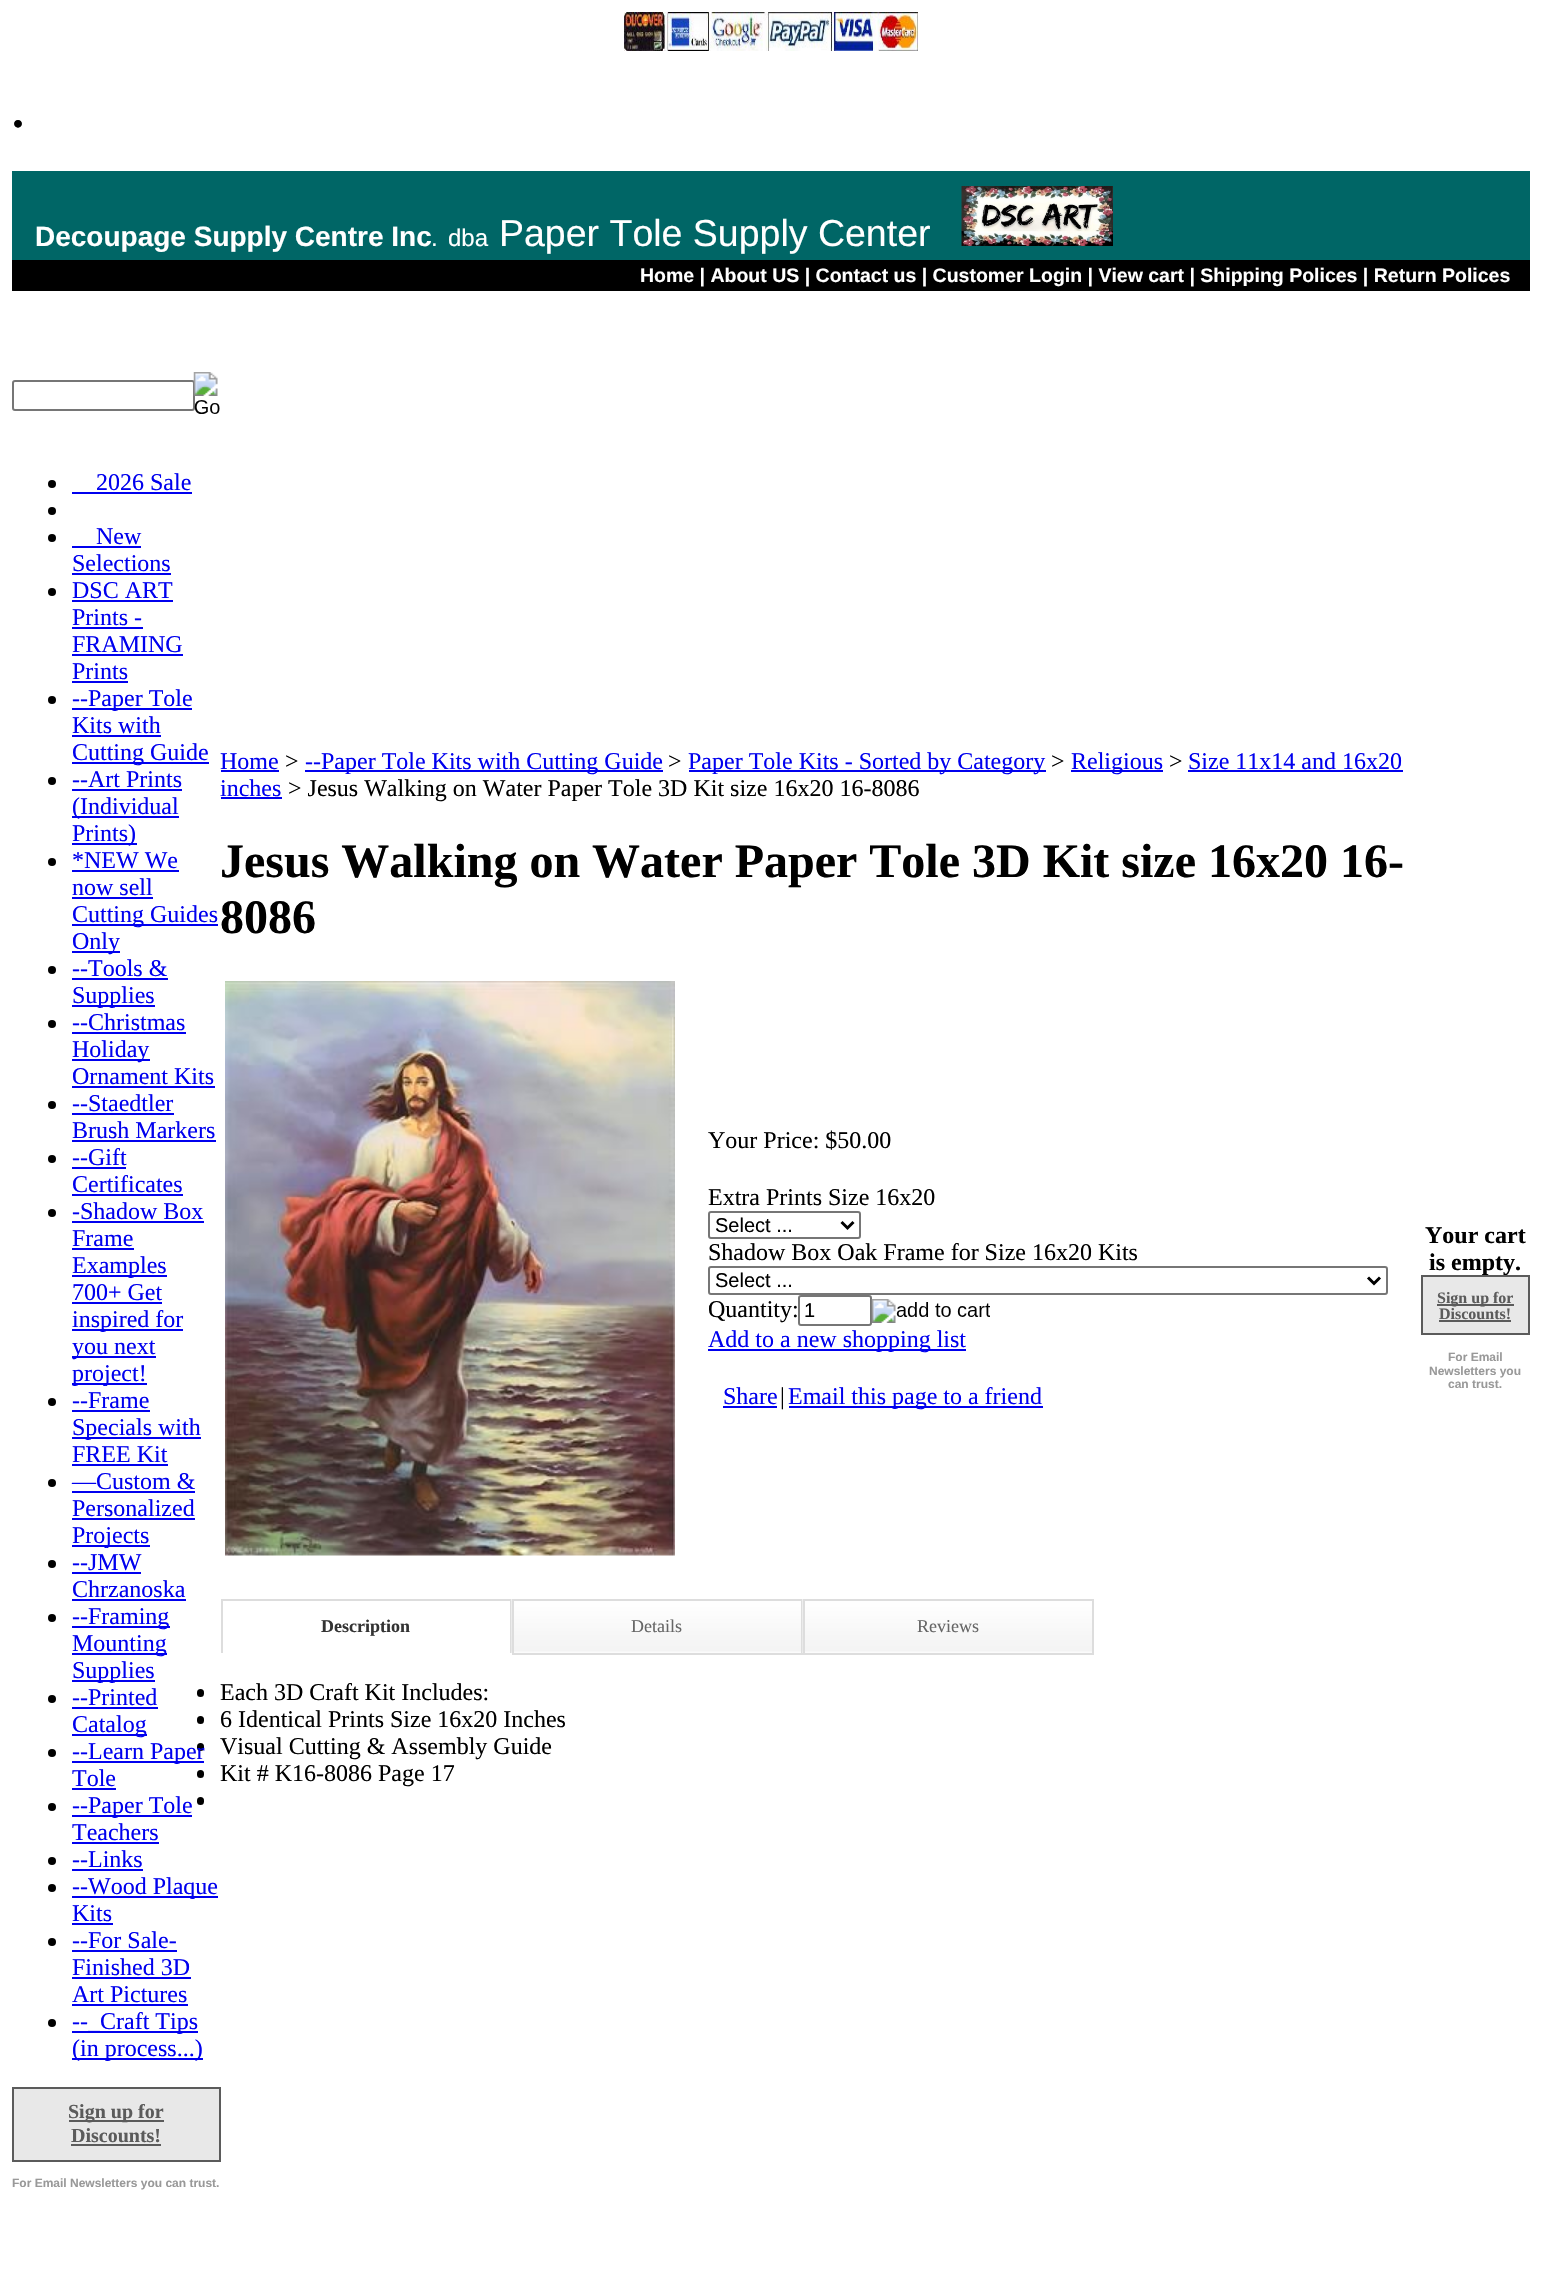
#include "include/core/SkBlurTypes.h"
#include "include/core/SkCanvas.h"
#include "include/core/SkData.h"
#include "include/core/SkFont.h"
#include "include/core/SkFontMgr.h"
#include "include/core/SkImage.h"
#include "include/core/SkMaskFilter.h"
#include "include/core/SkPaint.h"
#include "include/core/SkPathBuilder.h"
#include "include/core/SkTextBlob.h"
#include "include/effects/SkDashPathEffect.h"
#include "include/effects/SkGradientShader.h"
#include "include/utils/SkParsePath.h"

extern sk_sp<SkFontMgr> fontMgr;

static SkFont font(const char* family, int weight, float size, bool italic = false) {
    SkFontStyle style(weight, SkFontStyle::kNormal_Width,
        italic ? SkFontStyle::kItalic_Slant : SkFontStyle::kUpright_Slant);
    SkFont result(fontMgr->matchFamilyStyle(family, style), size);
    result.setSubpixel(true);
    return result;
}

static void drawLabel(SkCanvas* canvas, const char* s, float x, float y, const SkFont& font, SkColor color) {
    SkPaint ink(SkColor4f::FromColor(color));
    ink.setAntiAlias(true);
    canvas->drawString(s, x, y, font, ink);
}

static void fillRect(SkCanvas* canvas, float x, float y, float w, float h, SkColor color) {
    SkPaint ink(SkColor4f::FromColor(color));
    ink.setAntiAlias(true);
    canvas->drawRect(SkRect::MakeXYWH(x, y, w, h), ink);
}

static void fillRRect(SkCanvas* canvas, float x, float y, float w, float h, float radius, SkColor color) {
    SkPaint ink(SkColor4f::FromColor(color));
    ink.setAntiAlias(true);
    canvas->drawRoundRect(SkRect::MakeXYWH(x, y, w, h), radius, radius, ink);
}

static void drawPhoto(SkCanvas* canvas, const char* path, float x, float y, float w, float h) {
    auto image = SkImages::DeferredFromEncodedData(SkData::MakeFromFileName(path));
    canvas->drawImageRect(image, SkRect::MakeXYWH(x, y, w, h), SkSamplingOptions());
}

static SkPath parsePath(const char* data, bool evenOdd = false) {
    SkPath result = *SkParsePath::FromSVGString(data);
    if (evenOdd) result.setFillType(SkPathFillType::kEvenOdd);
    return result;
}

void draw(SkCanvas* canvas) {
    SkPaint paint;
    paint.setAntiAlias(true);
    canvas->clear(0xFFFFFFFF);
    drawPhoto(canvas, "assets/img1.png", 624, 12, 294, 39);
    SkFont font1 = font("Liberation Serif", 700, 48);
    drawLabel(canvas, ".", 12, 127, font1, 0xFF000000);
    fillRect(canvas, 12, 171, 1518, 89, 0xFF006666);
    SkFont font2 = font("Liberation Sans", 700, 28);
    drawLabel(canvas, "Decoupage Supply Centre Inc", 35, 246, font2, 0xFFFFFFFF);
    SkFont font3 = font("Liberation Sans", 400, 24);
    drawLabel(canvas, ".", 431, 246, font3, 0xFFFFFFFF);
    drawLabel(canvas, "dba", 448, 246, font3, 0xFFFFFFFF);
    SkFont font4 = font("Liberation Sans", 400, 37.5f);
    drawLabel(canvas, "Paper Tole Supply Center", 499, 246, font4, 0xFFFFFFFF);
    drawPhoto(canvas, "assets/img2.png", 961, 186, 152, 60);
    fillRect(canvas, 12, 260, 1518, 31, 0xFF000000);
    SkFont font5 = font("Liberation Sans", 700, 19.5f);
    drawLabel(canvas, "Home | About US | Contact us | Customer Login | View cart | Shipping Polices | Return Polices", 640, 282, font5, 0xFFFFFFFF);
    paint.setStroke(true);
    paint.setStrokeWidth(2);
    paint.setColor(0xFF767676);
    canvas->drawRoundRect(SkRect::MakeXYWH(13, 381, 181, 29), 2, 2, paint);
    drawPhoto(canvas, "assets/img3.png", 193, 372, 27, 42);
    paint.setStroke(false);
    paint.setColor(0xFF000000);
    canvas->drawCircle(52, 484, 4, paint);
    SkFont font6 = font("Liberation Serif", 400, 24);
    drawLabel(canvas, "2026 Sale", 96, 490, font6, 0xFF0000EE);
    fillRect(canvas, 72, 492, 120, 2, 0xFF0000EE);
    canvas->drawCircle(52, 511, 4, paint);
    canvas->drawCircle(52, 538, 4, paint);
    drawLabel(canvas, "New", 96, 544, font6, 0xFF0000EE);
    fillRect(canvas, 72, 546, 69, 2, 0xFF0000EE);
    drawLabel(canvas, "Selections", 72, 571, font6, 0xFF0000EE);
    fillRect(canvas, 72, 573, 99, 2, 0xFF0000EE);
    canvas->drawCircle(52, 592, 4, paint);
    drawLabel(canvas, "DSC ART", 72, 598, font6, 0xFF0000EE);
    fillRect(canvas, 72, 600, 101, 2, 0xFF0000EE);
    drawLabel(canvas, "Prints -", 72, 625, font6, 0xFF0000EE);
    fillRect(canvas, 72, 627, 71, 2, 0xFF0000EE);
    drawLabel(canvas, "FRAMING", 72, 652, font6, 0xFF0000EE);
    fillRect(canvas, 72, 654, 111, 2, 0xFF0000EE);
    drawLabel(canvas, "Prints", 72, 679, font6, 0xFF0000EE);
    fillRect(canvas, 72, 681, 56, 2, 0xFF0000EE);
    canvas->drawCircle(52, 700, 4, paint);
    fillRect(canvas, 72, 708, 120, 2, 0xFF0000EE);
    drawLabel(canvas, "--Paper Tole", 72, 706, font6, 0xFF0000EE);
    drawLabel(canvas, "Kits with", 72, 733, font6, 0xFF0000EE);
    fillRect(canvas, 72, 735, 89, 2, 0xFF0000EE);
    fillRect(canvas, 72, 762, 137, 2, 0xFF0000EE);
    drawLabel(canvas, "Cutting Guide", 72, 760, font6, 0xFF0000EE);
    canvas->drawCircle(52, 781, 4, paint);
    drawLabel(canvas, "--Art Prints", 72, 787, font6, 0xFF0000EE);
    fillRect(canvas, 72, 789, 110, 2, 0xFF0000EE);
    fillRect(canvas, 72, 816, 107, 2, 0xFF0000EE);
    drawLabel(canvas, "(Individual", 72, 814, font6, 0xFF0000EE);
    fillRect(canvas, 72, 843, 65, 2, 0xFF0000EE);
    drawLabel(canvas, "Prints)", 72, 841, font6, 0xFF0000EE);
    canvas->drawCircle(52, 862, 4, paint);
    drawLabel(canvas, "*NEW We", 72, 868, font6, 0xFF0000EE);
    fillRect(canvas, 72, 870, 107, 2, 0xFF0000EE);
    drawLabel(canvas, "now sell", 72, 895, font6, 0xFF0000EE);
    fillRect(canvas, 72, 897, 81, 2, 0xFF0000EE);
    fillRect(canvas, 72, 924, 146, 2, 0xFF0000EE);
    drawLabel(canvas, "Cutting Guides", 72, 922, font6, 0xFF0000EE);
    fillRect(canvas, 72, 951, 48, 2, 0xFF0000EE);
    drawLabel(canvas, "Only", 72, 949, font6, 0xFF0000EE);
    canvas->drawCircle(52, 970, 4, paint);
    drawLabel(canvas, "--Tools &", 72, 976, font6, 0xFF0000EE);
    fillRect(canvas, 72, 978, 96, 2, 0xFF0000EE);
    fillRect(canvas, 72, 1005, 83, 2, 0xFF0000EE);
    drawLabel(canvas, "Supplies", 72, 1003, font6, 0xFF0000EE);
    canvas->drawCircle(52, 1024, 4, paint);
    drawLabel(canvas, "--Christmas", 72, 1030, font6, 0xFF0000EE);
    fillRect(canvas, 72, 1032, 114, 2, 0xFF0000EE);
    fillRect(canvas, 72, 1059, 78, 2, 0xFF0000EE);
    drawLabel(canvas, "Holiday", 72, 1057, font6, 0xFF0000EE);
    drawLabel(canvas, "Ornament Kits", 72, 1084, font6, 0xFF0000EE);
    fillRect(canvas, 72, 1086, 143, 2, 0xFF0000EE);
    canvas->drawCircle(52, 1105, 4, paint);
    drawLabel(canvas, "--Staedtler", 72, 1111, font6, 0xFF0000EE);
    fillRect(canvas, 72, 1113, 102, 2, 0xFF0000EE);
    drawLabel(canvas, "Brush Markers", 72, 1138, font6, 0xFF0000EE);
    fillRect(canvas, 72, 1140, 144, 2, 0xFF0000EE);
    canvas->drawCircle(52, 1159, 4, paint);
    drawLabel(canvas, "--Gift", 72, 1165, font6, 0xFF0000EE);
    fillRect(canvas, 72, 1167, 54, 2, 0xFF0000EE);
    drawLabel(canvas, "Certificates", 72, 1192, font6, 0xFF0000EE);
    fillRect(canvas, 72, 1194, 111, 2, 0xFF0000EE);
    canvas->drawCircle(52, 1213, 4, paint);
    drawLabel(canvas, "-Shadow Box", 72, 1219, font6, 0xFF0000EE);
    fillRect(canvas, 72, 1221, 132, 2, 0xFF0000EE);
    drawLabel(canvas, "Frame", 72, 1246, font6, 0xFF0000EE);
    fillRect(canvas, 72, 1248, 62, 2, 0xFF0000EE);
    fillRect(canvas, 72, 1275, 95, 2, 0xFF0000EE);
    drawLabel(canvas, "Examples", 72, 1273, font6, 0xFF0000EE);
    drawLabel(canvas, "700+ Get", 72, 1300, font6, 0xFF0000EE);
    fillRect(canvas, 72, 1302, 90, 2, 0xFF0000EE);
    fillRect(canvas, 72, 1329, 111, 2, 0xFF0000EE);
    drawLabel(canvas, "inspired for", 72, 1327, font6, 0xFF0000EE);
    fillRect(canvas, 72, 1356, 84, 2, 0xFF0000EE);
    drawLabel(canvas, "you next", 72, 1354, font6, 0xFF0000EE);
    fillRect(canvas, 72, 1383, 75, 2, 0xFF0000EE);
    drawLabel(canvas, "project!", 72, 1381, font6, 0xFF0000EE);
    canvas->drawCircle(52, 1402, 4, paint);
    drawLabel(canvas, "--Frame", 72, 1408, font6, 0xFF0000EE);
    fillRect(canvas, 72, 1410, 78, 2, 0xFF0000EE);
    fillRect(canvas, 72, 1437, 129, 2, 0xFF0000EE);
    drawLabel(canvas, "Specials with", 72, 1435, font6, 0xFF0000EE);
    drawLabel(canvas, "FREE Kit", 72, 1462, font6, 0xFF0000EE);
    fillRect(canvas, 72, 1464, 96, 2, 0xFF0000EE);
    canvas->drawCircle(52, 1483, 4, paint);
    drawLabel(canvas, "—Custom &", 72, 1489, font6, 0xFF0000EE);
    fillRect(canvas, 72, 1491, 123, 2, 0xFF0000EE);
    drawLabel(canvas, "Personalized", 72, 1516, font6, 0xFF0000EE);
    fillRect(canvas, 72, 1518, 123, 2, 0xFF0000EE);
    fillRect(canvas, 72, 1545, 78, 2, 0xFF0000EE);
    drawLabel(canvas, "Projects", 72, 1543, font6, 0xFF0000EE);
    canvas->drawCircle(52, 1564, 4, paint);
    drawLabel(canvas, "--JMW", 72, 1570, font6, 0xFF0000EE);
    fillRect(canvas, 72, 1572, 69, 2, 0xFF0000EE);
    drawLabel(canvas, "Chrzanoska", 72, 1597, font6, 0xFF0000EE);
    fillRect(canvas, 72, 1599, 114, 2, 0xFF0000EE);
    canvas->drawCircle(52, 1618, 4, paint);
    fillRect(canvas, 72, 1626, 98, 2, 0xFF0000EE);
    drawLabel(canvas, "--Framing", 72, 1624, font6, 0xFF0000EE);
    fillRect(canvas, 72, 1653, 95, 2, 0xFF0000EE);
    drawLabel(canvas, "Mounting", 72, 1651, font6, 0xFF0000EE);
    fillRect(canvas, 72, 1680, 83, 2, 0xFF0000EE);
    drawLabel(canvas, "Supplies", 72, 1678, font6, 0xFF0000EE);
    canvas->drawCircle(52, 1699, 4, paint);
    drawLabel(canvas, "--Printed", 72, 1705, font6, 0xFF0000EE);
    fillRect(canvas, 72, 1707, 86, 2, 0xFF0000EE);
    fillRect(canvas, 72, 1734, 75, 2, 0xFF0000EE);
    drawLabel(canvas, "Catalog", 72, 1732, font6, 0xFF0000EE);
    canvas->drawCircle(52, 1753, 4, paint);
    fillRect(canvas, 72, 1761, 132, 2, 0xFF0000EE);
    fillRRect(canvas, 197, 1743, 7, 8, 3.5f, 0xFF000000);
    drawLabel(canvas, "--Learn Paper", 72, 1759, font6, 0xFF0000EE);
    drawLabel(canvas, "Tole", 72, 1786, font6, 0xFF0000EE);
    fillRect(canvas, 72, 1788, 44, 2, 0xFF0000EE);
    canvas->drawCircle(52, 1807, 4, paint);
    fillRect(canvas, 72, 1815, 120, 2, 0xFF0000EE);
    drawLabel(canvas, "--Paper Tole", 72, 1813, font6, 0xFF0000EE);
    drawLabel(canvas, "Teachers", 72, 1840, font6, 0xFF0000EE);
    fillRect(canvas, 72, 1842, 87, 2, 0xFF0000EE);
    canvas->drawCircle(52, 1861, 4, paint);
    drawLabel(canvas, "--Links", 72, 1867, font6, 0xFF0000EE);
    fillRect(canvas, 72, 1869, 71, 2, 0xFF0000EE);
    canvas->drawCircle(52, 1888, 4, paint);
    fillRect(canvas, 72, 1896, 146, 2, 0xFF0000EE);
    drawLabel(canvas, "--Wood Plaque", 72, 1894, font6, 0xFF0000EE);
    drawLabel(canvas, "Kits", 72, 1921, font6, 0xFF0000EE);
    fillRect(canvas, 72, 1923, 41, 2, 0xFF0000EE);
    canvas->drawCircle(52, 1942, 4, paint);
    drawLabel(canvas, "--For Sale-", 72, 1948, font6, 0xFF0000EE);
    fillRect(canvas, 72, 1950, 105, 2, 0xFF0000EE);
    drawLabel(canvas, "Finished 3D", 72, 1975, font6, 0xFF0000EE);
    fillRect(canvas, 72, 1977, 119, 2, 0xFF0000EE);
    drawLabel(canvas, "Art Pictures", 72, 2002, font6, 0xFF0000EE);
    fillRect(canvas, 72, 2004, 116, 2, 0xFF0000EE);
    canvas->drawCircle(52, 2023, 4, paint);
    fillRect(canvas, 72, 2031, 126, 2, 0xFF0000EE);
    drawLabel(canvas, "--_Craft Tips", 72, 2029, font6, 0xFF0000EE);
    fillRect(canvas, 72, 2058, 131, 2, 0xFF0000EE);
    drawLabel(canvas, "(in process...)", 72, 2056, font6, 0xFF0000EE);
    paint.setColor(0xFFE8E8E8);
    canvas->drawRect(SkRect::MakeXYWH(13, 2088, 207, 73), paint);
    paint.setStroke(true);
    paint.setColor(0xFF5B5B5B);
    canvas->drawRect(SkRect::MakeXYWH(13, 2088, 207, 73), paint);
    fillRect(canvas, 69, 2120, 95, 2, 0xFF5B5B5B);
    SkFont font7 = font("Liberation Serif", 700, 20);
    drawLabel(canvas, "Sign up for", 68, 2118, font7, 0xFF5B5B5B);
    drawLabel(canvas, "Discounts!", 71, 2142, font7, 0xFF5B5B5B);
    fillRect(canvas, 71, 2144, 90, 2, 0xFF5B5B5B);
    SkFont font8 = font("Liberation Sans", 700, 12);
    drawLabel(canvas, "For Email Newsletters you can trust.", 12, 2187, font8, 0xFF999999);
    drawLabel(canvas, "Home", 220, 769, font6, 0xFF0000EE);
    fillRect(canvas, 221, 770, 58, 2, 0xFF0000EE);
    drawLabel(canvas, ">", 285, 769, font6, 0xFF000000);
    fillRect(canvas, 305, 770, 358, 2, 0xFF0000EE);
    drawLabel(canvas, "--Paper Tole Kits with Cutting Guide", 305, 769, font6, 0xFF0000EE);
    drawLabel(canvas, ">", 668, 769, font6, 0xFF000000);
    fillRect(canvas, 689, 770, 357, 2, 0xFF0000EE);
    drawLabel(canvas, "Paper Tole Kits - Sorted by Category", 688, 769, font6, 0xFF0000EE);
    drawLabel(canvas, ">", 1051, 769, font6, 0xFF000000);
    fillRect(canvas, 1071, 770, 92, 2, 0xFF0000EE);
    drawLabel(canvas, "Religious", 1071, 769, font6, 0xFF0000EE);
    drawLabel(canvas, ">", 1169, 769, font6, 0xFF000000);
    drawLabel(canvas, "Size 11x14 and 16x20", 1188, 769, font6, 0xFF0000EE);
    fillRect(canvas, 1188, 770, 215, 2, 0xFF0000EE);
    drawLabel(canvas, "inches", 220, 796, font6, 0xFF0000EE);
    fillRect(canvas, 221, 797, 61, 2, 0xFF0000EE);
    drawLabel(canvas, "> Jesus Walking on Water Paper Tole 3D Kit size 16x20 16-8086", 288, 796, font6, 0xFF000000);
    drawLabel(canvas, "Jesus Walking on Water Paper Tole 3D Kit size 16x20 16-", 220, 877, font1, 0xFF000000);
    drawLabel(canvas, "8086", 220, 933, font1, 0xFF000000);
    drawPhoto(canvas, "assets/img4.png", 225, 981, 450, 575);
    drawLabel(canvas, "Your Price: $50.00", 708, 1148, font6, 0xFF000000);
    drawLabel(canvas, "Extra Prints Size 16x20", 708, 1205, font6, 0xFF000000);
    paint.setColor(0xFF767676);
    canvas->drawRoundRect(SkRect::MakeXYWH(709, 1212, 151, 26), 2, 2, paint);
    paint.setStrokeWidth(3);
    paint.setColor(0xFF000000);
    canvas->drawPath(parsePath("M841.5 1222L847.5 1228L853.5 1222"), paint);
    SkFont font9 = font("Liberation Sans", 400, 20);
    drawLabel(canvas, "Select ...", 715, 1232, font9, 0xFF000000);
    drawLabel(canvas, "Shadow Box Oak Frame for Size 16x20 Kits", 708, 1260, font6, 0xFF000000);
    paint.setStrokeWidth(2);
    paint.setColor(0xFF767676);
    canvas->drawRoundRect(SkRect::MakeXYWH(709, 1267, 678, 27), 2, 2, paint);
    paint.setStrokeWidth(3);
    paint.setColor(0xFF000000);
    canvas->drawPath(parsePath("M1368 1277.5L1374 1283.5L1380 1277.5"), paint);
    drawLabel(canvas, "Select ...", 715, 1287, font9, 0xFF000000);
    drawLabel(canvas, "Quantity:", 708, 1317, font6, 0xFF000000);
    paint.setStrokeWidth(2);
    paint.setColor(0xFF767676);
    canvas->drawRoundRect(SkRect::MakeXYWH(799, 1296, 72, 29), 2, 2, paint);
    drawLabel(canvas, "1", 804, 1317, font9, 0xFF000000);
    drawPhoto(canvas, "assets/img5.png", 871, 1299, 119, 24);
    fillRect(canvas, 708, 1349, 258, 2, 0xFF0000EE);
    drawLabel(canvas, "Add to a new shopping list", 708, 1347, font6, 0xFF0000EE);
    drawLabel(canvas, "Share", 723, 1404, font6, 0xFF0000EE);
    fillRect(canvas, 723, 1406, 54, 2, 0xFF0000EE);
    drawLabel(canvas, "|", 780, 1404, font6, 0xFF000000);
    fillRect(canvas, 789, 1406, 254, 2, 0xFF0000EE);
    drawLabel(canvas, "Email this page to a friend", 788, 1404, font6, 0xFF0000EE);
    fillRect(canvas, 221, 1599, 291, 2, 0xFFDDDDDD);
    fillRect(canvas, 510, 1599, 2, 54, 0xFFDDDDDD);
    fillRect(canvas, 221, 1599, 2, 54, 0xFFDDDDDD);
    SkFont font10 = font("Liberation Serif", 700, 18);
    drawLabel(canvas, "Description", 321, 1632, font10, 0xFF333333);
    drawPhoto(canvas, "assets/img6.png", 511, 1599, 290, 54);
    paint.setColor(0xFFDDDDDD);
    canvas->drawRect(SkRect::MakeXYWH(513, 1600, 289, 54), paint);
    SkFont font11 = font("Liberation Serif", 400, 18);
    drawLabel(canvas, "Details", 631, 1632, font11, 0xFF666666);
    drawPhoto(canvas, "assets/img6.png", 802, 1599, 290, 54);
    canvas->drawRect(SkRect::MakeXYWH(804, 1600, 289, 54), paint);
    drawLabel(canvas, "Reviews", 917, 1632, font11, 0xFF666666);
    fillRRect(canvas, 197, 1689, 7, 8, 3.5f, 0xFF000000);
    drawLabel(canvas, "Each 3D Craft Kit Includes:", 220, 1700, font6, 0xFF000000);
    fillRRect(canvas, 197, 1716, 7, 8, 3.5f, 0xFF000000);
    drawLabel(canvas, "6 Identical Prints Size 16x20 Inches", 220, 1727, font6, 0xFF000000);
    drawLabel(canvas, "Visual Cutting & Assembly Guide", 220, 1754, font6, 0xFF000000);
    fillRRect(canvas, 197, 1770, 7, 8, 3.5f, 0xFF000000);
    drawLabel(canvas, "Kit # K16-8086 Page 17", 220, 1781, font6, 0xFF000000);
    fillRRect(canvas, 197, 1797, 7, 8, 3.5f, 0xFF000000);
    SkFont font12 = font("Liberation Serif", 700, 24);
    drawLabel(canvas, "Your cart", 1425, 1243, font12, 0xFF000000);
    drawLabel(canvas, "is empty.", 1429, 1270, font12, 0xFF000000);
    paint.setStroke(false);
    paint.setColor(0xFFE8E8E8);
    canvas->drawRect(SkRect::MakeXYWH(1422, 1276, 107, 58), paint);
    paint.setStroke(true);
    paint.setColor(0xFF5B5B5B);
    canvas->drawRect(SkRect::MakeXYWH(1422, 1276, 107, 58), paint);
    fillRect(canvas, 1437, 1304, 77, 2, 0xFF5B5B5B);
    SkFont font13 = font("Liberation Serif", 700, 16);
    drawLabel(canvas, "Sign up for", 1437, 1303, font13, 0xFF5B5B5B);
    drawLabel(canvas, "Discounts!", 1439, 1319, font13, 0xFF5B5B5B);
    fillRect(canvas, 1439, 1320, 72, 2, 0xFF5B5B5B);
    drawLabel(canvas, "For Email", 1448, 1361, font8, 0xFF999999);
    drawLabel(canvas, "Newsletters you", 1429, 1375, font8, 0xFF999999);
    drawLabel(canvas, "can trust.", 1448, 1388, font8, 0xFF999999);
}
